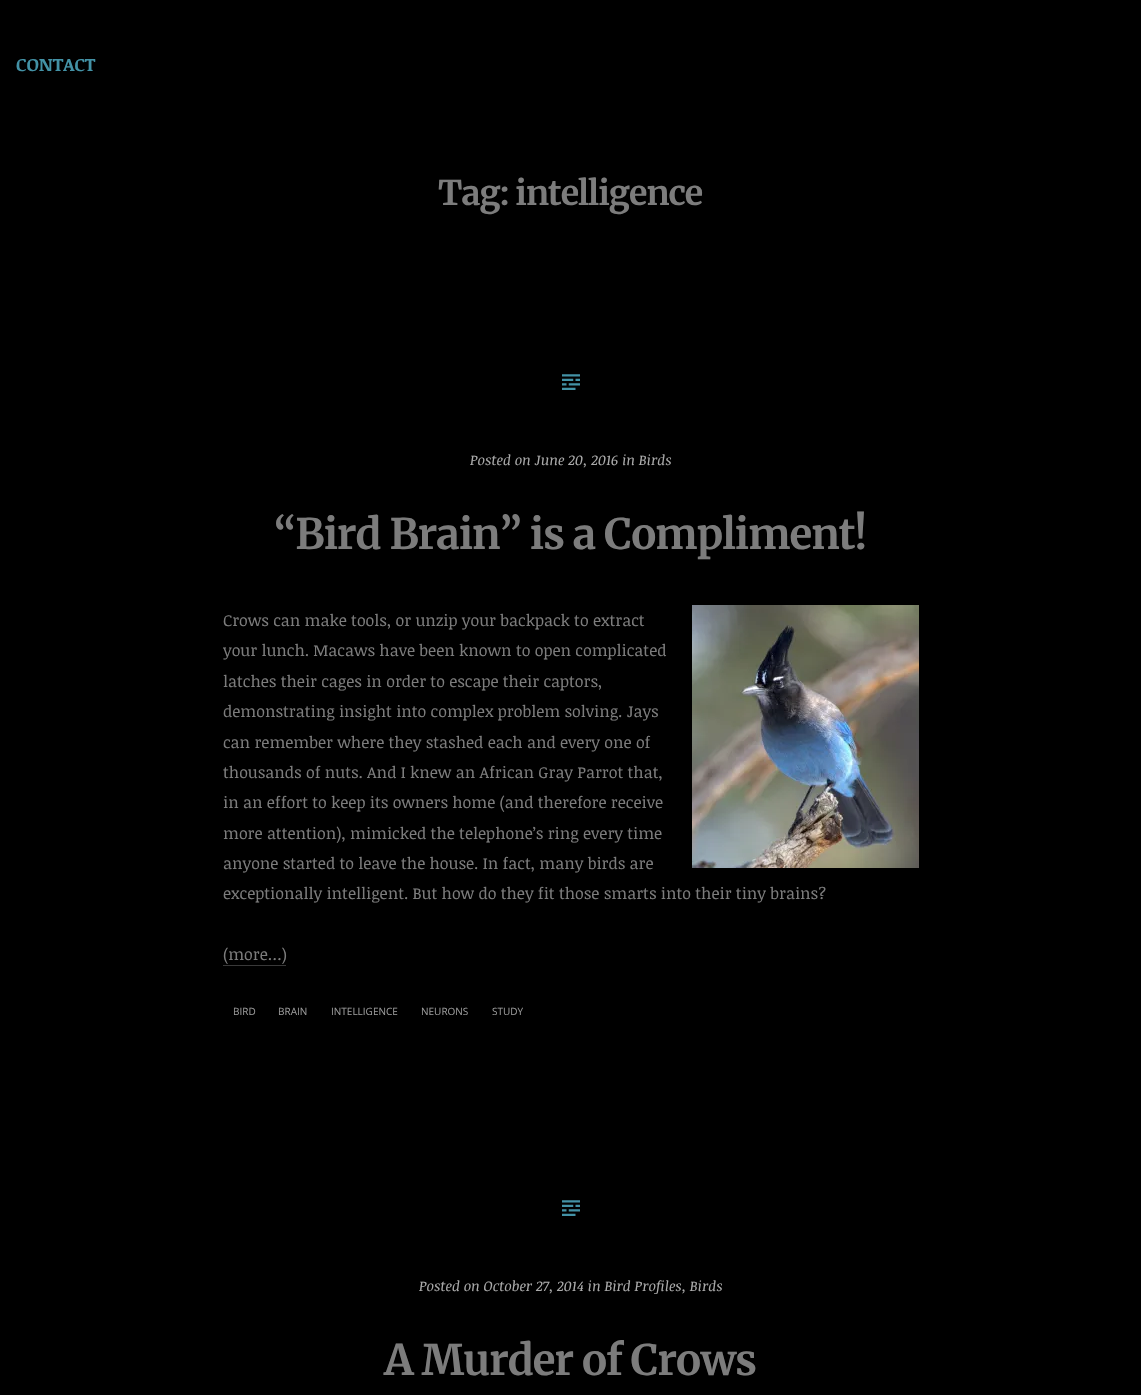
#include "include/core/SkBlurTypes.h"
#include "include/core/SkCanvas.h"
#include "include/core/SkData.h"
#include "include/core/SkFont.h"
#include "include/core/SkFontMgr.h"
#include "include/core/SkImage.h"
#include "include/core/SkMaskFilter.h"
#include "include/core/SkPaint.h"
#include "include/core/SkPathBuilder.h"
#include "include/core/SkTextBlob.h"
#include "include/effects/SkDashPathEffect.h"
#include "include/effects/SkGradientShader.h"
#include "include/utils/SkParsePath.h"

extern sk_sp<SkFontMgr> fontMgr;

static SkFont font(const char* family, int weight, float size, bool italic = false) {
    SkFontStyle style(weight, SkFontStyle::kNormal_Width,
        italic ? SkFontStyle::kItalic_Slant : SkFontStyle::kUpright_Slant);
    SkFont result(fontMgr->matchFamilyStyle(family, style), size);
    result.setSubpixel(true);
    return result;
}

static void drawLabel(SkCanvas* canvas, const char* s, float x, float y, const SkFont& font, SkColor color) {
    SkPaint ink(SkColor4f::FromColor(color));
    ink.setAntiAlias(true);
    canvas->drawString(s, x, y, font, ink);
}

static void drawTracked(SkCanvas* canvas, const char* s, float x, float y, const SkFont& font, const SkPaint& ink, float letter, float word) {
    std::vector<SkGlyphID> glyphs(font.countText(s, strlen(s), SkTextEncoding::kUTF8));
    std::vector<float> xs(glyphs.size());
    font.textToGlyphs(s, strlen(s), SkTextEncoding::kUTF8, glyphs);
    font.getXPos(glyphs, xs, x);
    float extra = 0;
    for (size_t i = 0; i < glyphs.size(); i++) {
        xs[i] += extra;
        extra += letter + word * (glyphs[i] == font.unicharToGlyph(' '));
    }
    canvas->drawTextBlob(SkTextBlob::MakeFromPosHGlyphs(glyphs, xs, y, font), 0, 0, ink);
}

static void fillRect(SkCanvas* canvas, float x, float y, float w, float h, SkColor color) {
    SkPaint ink(SkColor4f::FromColor(color));
    ink.setAntiAlias(true);
    canvas->drawRect(SkRect::MakeXYWH(x, y, w, h), ink);
}

static void drawPhoto(SkCanvas* canvas, const char* path, float x, float y, float w, float h) {
    auto image = SkImages::DeferredFromEncodedData(SkData::MakeFromFileName(path));
    canvas->drawImageRect(image, SkRect::MakeXYWH(x, y, w, h), SkSamplingOptions());
}

void draw(SkCanvas* canvas) {
    SkPaint paint;
    paint.setAntiAlias(true);
    canvas->clear(0xFF000000);
    SkFont font1 = font("Noticia Text", 700, 18);
    drawLabel(canvas, "CONTACT", 16, 71, font1, 0xFF4392A6);
    SkFont font2 = font("Merriweather", 300, 34);
    paint.setColor(0xFF7C7C7C);
    drawTracked(canvas, "Tag: intelligence", 438, 205, font2, paint, -1, 0);
    drawPhoto(canvas, "assets/img1.png", 562, 374, 18, 16);
    SkFont font3 = font("Noticia Text", 400, 14, true);
    drawLabel(canvas, "Posted on June 20, 2016 in Birds", 470, 465, font3, 0xFFAAAAAA);
    SkFont font4 = font("Merriweather", 300, 42);
    drawTracked(canvas, "“Bird Brain” is a Compliment!", 274, 549, font4, paint, -1, 0);
    SkFont font5 = font("Noticia Text", 400, 16);
    drawLabel(canvas, "Crows can make tools, or unzip your backpack to extract", 223, 626, font5, 0xFF7C7C7C);
    drawPhoto(canvas, "assets/img2.png", 692, 605, 227, 263);
    drawLabel(canvas, "your lunch. Macaws have been known to open complicated", 223, 656, font5, 0xFF7C7C7C);
    drawLabel(canvas, "latches their cages in order to escape their captors,", 223, 687, font5, 0xFF7C7C7C);
    drawLabel(canvas, "demonstrating insight into complex problem solving. Jays", 223, 717, font5, 0xFF7C7C7C);
    drawLabel(canvas, "can remember where they stashed each and every one of", 223, 748, font5, 0xFF7C7C7C);
    drawLabel(canvas, "thousands of nuts. And I knew an African Gray Parrot that,", 223, 778, font5, 0xFF7C7C7C);
    drawLabel(canvas, "in an effort to keep its owners home (and therefore receive", 223, 808, font5, 0xFF7C7C7C);
    drawLabel(canvas, "more attention), mimicked the telephone’s ring every time", 223, 839, font5, 0xFF7C7C7C);
    drawLabel(canvas, "anyone started to leave the house. In fact, many birds are", 223, 869, font5, 0xFF7C7C7C);
    drawLabel(canvas, "exceptionally intelligent. But how do they fit those smarts into their tiny brains?", 223, 899, font5, 0xFF7C7C7C);
    drawLabel(canvas, "(more…)", 223, 960, font5, 0xFF7C7C7C);
    fillRect(canvas, 223, 965, 63, 1, 0xFF393939);
    SkFont font6 = font("Open Sans", 400, 10);
    drawLabel(canvas, "BIRD", 233, 1015, font6, 0xFF999999);
    drawLabel(canvas, "BRAIN", 278, 1015, font6, 0xFF999999);
    drawLabel(canvas, "INTELLIGENCE", 331, 1015, font6, 0xFF999999);
    drawLabel(canvas, "NEURONS", 421, 1015, font6, 0xFF999999);
    drawLabel(canvas, "STUDY", 492, 1015, font6, 0xFF999999);
    drawPhoto(canvas, "assets/img1.png", 562, 1200, 18, 16);
    drawLabel(canvas, "Posted on October 27, 2014 in Bird Profiles, Birds", 419, 1291, font3, 0xFFAAAAAA);
    drawTracked(canvas, "A Murder of Crows", 384, 1375, font4, paint, -1, 0);
}
